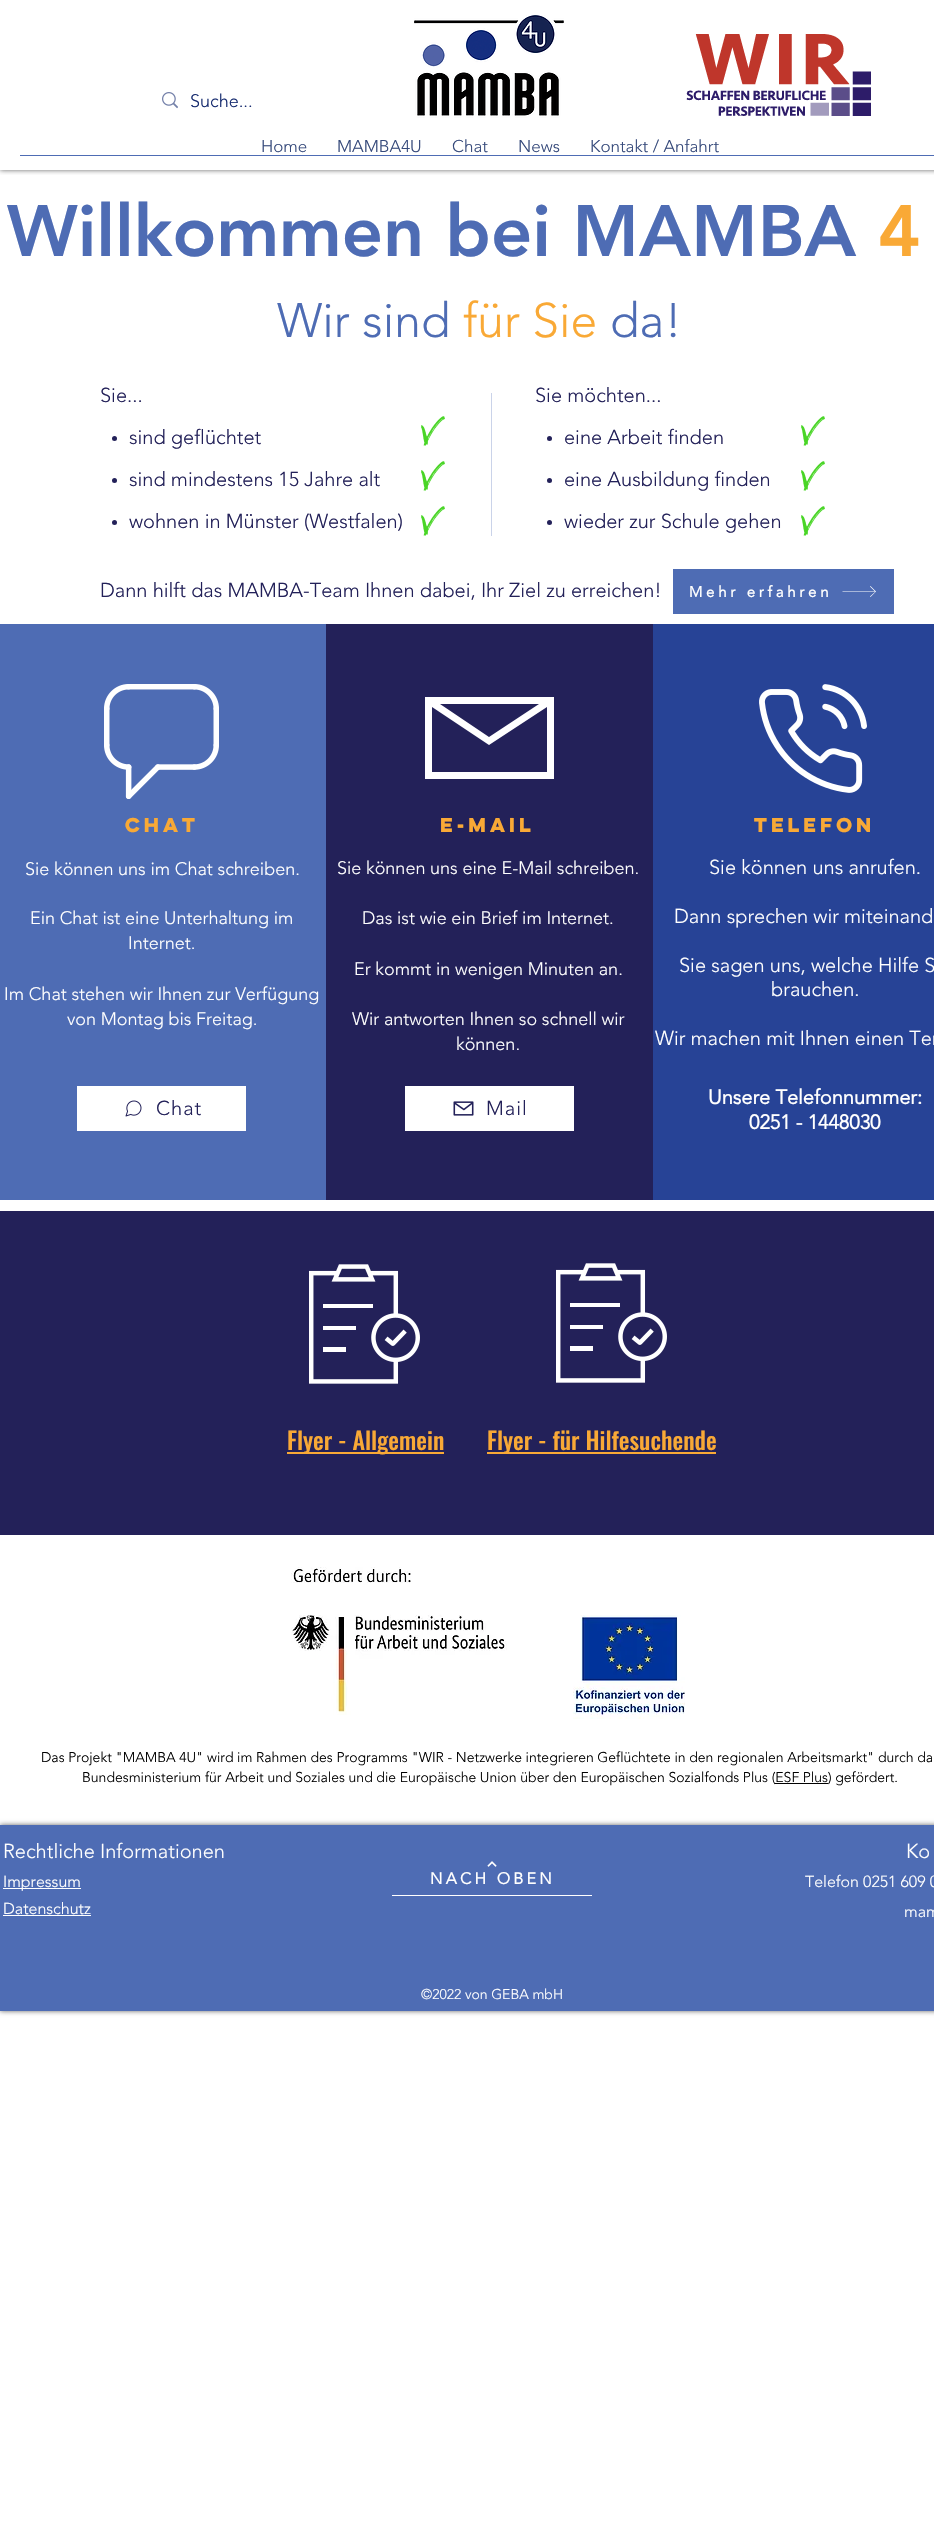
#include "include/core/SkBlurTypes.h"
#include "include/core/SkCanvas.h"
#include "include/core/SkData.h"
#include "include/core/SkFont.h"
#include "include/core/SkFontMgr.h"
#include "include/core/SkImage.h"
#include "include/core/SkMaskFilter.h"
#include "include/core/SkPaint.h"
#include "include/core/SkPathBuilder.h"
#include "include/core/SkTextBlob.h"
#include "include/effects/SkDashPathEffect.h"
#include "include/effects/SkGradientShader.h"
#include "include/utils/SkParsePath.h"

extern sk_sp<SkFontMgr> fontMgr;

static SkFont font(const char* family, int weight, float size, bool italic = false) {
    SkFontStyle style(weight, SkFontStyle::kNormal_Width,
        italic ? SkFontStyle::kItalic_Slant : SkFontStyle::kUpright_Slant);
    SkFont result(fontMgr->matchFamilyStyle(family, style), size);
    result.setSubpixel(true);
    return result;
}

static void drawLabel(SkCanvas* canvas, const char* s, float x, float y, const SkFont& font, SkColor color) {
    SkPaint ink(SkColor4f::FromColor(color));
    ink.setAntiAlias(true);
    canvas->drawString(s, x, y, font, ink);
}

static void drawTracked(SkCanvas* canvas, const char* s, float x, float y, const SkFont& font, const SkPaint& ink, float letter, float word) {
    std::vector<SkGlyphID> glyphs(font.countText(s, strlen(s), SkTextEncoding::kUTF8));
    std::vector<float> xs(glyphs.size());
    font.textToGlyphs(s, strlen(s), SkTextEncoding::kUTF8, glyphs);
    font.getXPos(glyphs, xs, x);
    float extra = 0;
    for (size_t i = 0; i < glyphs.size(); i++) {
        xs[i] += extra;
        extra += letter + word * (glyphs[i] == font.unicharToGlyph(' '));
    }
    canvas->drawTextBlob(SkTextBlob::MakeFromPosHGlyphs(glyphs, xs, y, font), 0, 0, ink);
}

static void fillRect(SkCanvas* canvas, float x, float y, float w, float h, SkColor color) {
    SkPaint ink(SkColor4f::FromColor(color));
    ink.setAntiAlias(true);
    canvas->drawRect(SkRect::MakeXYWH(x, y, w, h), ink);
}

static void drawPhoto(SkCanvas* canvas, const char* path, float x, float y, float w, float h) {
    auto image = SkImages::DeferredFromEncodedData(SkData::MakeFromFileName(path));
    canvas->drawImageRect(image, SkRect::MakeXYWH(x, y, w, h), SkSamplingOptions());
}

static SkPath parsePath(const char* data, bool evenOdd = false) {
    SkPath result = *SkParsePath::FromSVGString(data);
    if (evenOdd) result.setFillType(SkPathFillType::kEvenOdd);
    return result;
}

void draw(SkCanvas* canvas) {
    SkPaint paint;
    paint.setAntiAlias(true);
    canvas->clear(0xFFFFFFFF);
    canvas->save();
    canvas->clipRect(SkRect::MakeXYWH(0, 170, 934, 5));
    paint.setColor(0x99000000);
    paint.setMaskFilter(SkMaskFilter::MakeBlur(kNormal_SkBlurStyle, 2.5f));
    canvas->drawRect(SkRect::MakeXYWH(0, 0, 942, 170), paint);
    paint.setMaskFilter(nullptr);
    canvas->restore();
    drawPhoto(canvas, "assets/img1.png", 162, 92, 16, 17);
    SkFont font1 = font("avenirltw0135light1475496", 300, 18);
    drawLabel(canvas, "Suche...", 190, 107, font1, 0xFF162B6F);
    drawPhoto(canvas, "assets/img2.png", 414, 15, 150, 103);
    drawPhoto(canvas, "assets/img3.png", 686, 34, 185, 82);
    SkFont font2 = font("avenirltw0135light1475496", 300, 17);
    drawLabel(canvas, "Home", 261, 152, font2, 0xFF364A7B);
    drawLabel(canvas, "MAMBA4U", 337, 152, font2, 0xFF364A7B);
    drawLabel(canvas, "Chat", 452, 152, font2, 0xFF364A7B);
    drawLabel(canvas, "News", 518, 152, font2, 0xFF364A7B);
    drawLabel(canvas, "Kontakt / Anfahrt", 590, 152, font2, 0xFF364A7B);
    fillRect(canvas, 20, 155, 914, 1, 0xFF4E6CB4);
    SkFont font3 = font("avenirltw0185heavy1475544", 900, 72);
    drawLabel(canvas, "Willkommen bei MAMBA", 7, 256, font3, 0xFF4E6CB4);
    drawLabel(canvas, "4", 878, 256, font3, 0xFFF9A936);
    SkFont font4 = font("avenirltw0135light1475496", 300, 48);
    drawLabel(canvas, "Wir sind", 277, 337, font4, 0xFF4E6CB4);
    drawLabel(canvas, "für Sie", 463, 337, font4, 0xFFF9A936);
    drawLabel(canvas, "da!", 610, 337, font4, 0xFF4E6CB4);
    SkFont font5 = font("avenirltw0135light1475496", 300, 20);
    drawLabel(canvas, "Sie...", 100, 402, font5, 0xFF232159);
    paint.setColor(0xFF232159);
    canvas->drawCircle(114.5f, 438.5f, 2.5f, paint);
    drawLabel(canvas, "sind geflüchtet", 129, 444, font5, 0xFF232159);
    canvas->drawCircle(114.5f, 480.5f, 2.5f, paint);
    drawLabel(canvas, "sind mindestens 15 Jahre alt", 129, 486, font5, 0xFF232159);
    canvas->drawCircle(114.5f, 522.5f, 2.5f, paint);
    drawLabel(canvas, "wohnen in Münster (Westfalen)", 129, 528, font5, 0xFF232159);
    drawPhoto(canvas, "assets/img4.png", 421, 416, 24, 30);
    drawPhoto(canvas, "assets/img4.png", 421, 461, 24, 30);
    drawPhoto(canvas, "assets/img4.png", 421, 506, 24, 30);
    drawLabel(canvas, "Sie möchten...", 535, 402, font5, 0xFF232159);
    canvas->drawCircle(549.5f, 438.5f, 2.5f, paint);
    drawLabel(canvas, "eine Arbeit finden", 564, 444, font5, 0xFF232159);
    canvas->drawCircle(549.5f, 480.5f, 2.5f, paint);
    drawLabel(canvas, "eine Ausbildung finden", 564, 486, font5, 0xFF232159);
    canvas->drawCircle(549.5f, 522.5f, 2.5f, paint);
    drawLabel(canvas, "wieder zur Schule gehen", 564, 528, font5, 0xFF232159);
    drawPhoto(canvas, "assets/img4.png", 801, 416, 24, 30);
    drawPhoto(canvas, "assets/img4.png", 801, 461, 24, 30);
    drawPhoto(canvas, "assets/img4.png", 801, 506, 24, 30);
    fillRect(canvas, 491, 393, 1, 143, 0xFFCAD3E9);
    drawLabel(canvas, "Dann hilft das MAMBA-Team Ihnen dabei, Ihr Ziel zu erreichen!", 100, 597, font5, 0xFF232159);
    fillRect(canvas, 673, 569, 221, 45, 0xFF4E6CB4);
    SkFont font6 = font("avenirltw0135light1475496", 700, 15);
    paint.setColor(0xFFFFFFFF);
    drawTracked(canvas, "Mehr erfahren", 689, 597, font6, paint, 3.75f, 0);
    canvas->drawPath(parsePath("M870.5 586L870 586.5L875 591.5H842.5V592H875L870 596.5L870.5 597L876 591.5Z"), paint);
    fillRect(canvas, 0, 624, 326, 576, 0xFF4E6CB4);
    drawPhoto(canvas, "assets/img5.png", 104, 684, 115, 115);
    SkFont font7 = font("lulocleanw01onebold", 700, 18);
    drawLabel(canvas, "Chat", 125, 832, font7, 0xFFF9A936);
    drawLabel(canvas, "Sie können uns im Chat schreiben.", 25, 875, font1, 0xFFFFFFFF);
    drawLabel(canvas, "Ein Chat ist eine Unterhaltung im", 30, 924, font1, 0xFFFFFFFF);
    drawLabel(canvas, "Internet.", 128, 949, font1, 0xFFFFFFFF);
    drawLabel(canvas, "Im Chat stehen wir Ihnen zur Verfügung", 4, 1000, font1, 0xFFFFFFFF);
    drawLabel(canvas, "von Montag bis Freitag.", 67, 1025, font1, 0xFFFFFFFF);
    fillRect(canvas, 77, 1086, 169, 45, 0xFFFFFFFF);
    drawPhoto(canvas, "assets/img6.png", 125, 1100, 17, 17);
    paint.setColor(0xFF232159);
    drawTracked(canvas, "Chat", 156, 1115, font5, paint, 1, 0);
    fillRect(canvas, 326, 624, 327, 576, 0xFF232159);
    paint.setColor(0xFFFFFFFF);
    canvas->drawPath(parsePath("M425 697V779H554V697ZM539 704L489 737L440 704ZM432 772V707L489 745L547 707V772Z"), paint);
    drawLabel(canvas, "E-Mail", 440, 832, font7, 0xFFF9A936);
    drawLabel(canvas, "Sie können uns eine E-Mail schreiben.", 337, 874, font1, 0xFFFFFFFF);
    drawLabel(canvas, "Das ist wie ein Brief im Internet.", 362, 924, font1, 0xFFFFFFFF);
    drawLabel(canvas, "Er kommt in wenigen Minuten an.", 354, 975, font1, 0xFFFFFFFF);
    drawLabel(canvas, "Wir antworten Ihnen so schnell wir", 352, 1025, font1, 0xFFFFFFFF);
    drawLabel(canvas, "können.", 456, 1050, font1, 0xFFFFFFFF);
    fillRect(canvas, 405, 1086, 169, 45, 0xFFFFFFFF);
    drawPhoto(canvas, "assets/img7.png", 453, 1101, 21, 15);
    paint.setColor(0xFF232159);
    drawTracked(canvas, "Mail", 486, 1115, font5, paint, 1, 0);
    fillRect(canvas, 653, 624, 281, 576, 0xFF274396);
    drawPhoto(canvas, "assets/img8.png", 759, 684, 108, 109);
    drawLabel(canvas, "Telefon", 754, 832, font7, 0xFFF9A936);
    drawLabel(canvas, "Sie können uns anrufen.", 709, 874, font5, 0xFFFFFFFF);
    drawLabel(canvas, "Dann sprechen wir miteinand", 674, 923, font5, 0xFFFFFFFF);
    drawLabel(canvas, "Sie sagen uns, welche Hilfe S", 679, 972, font5, 0xFFFFFFFF);
    drawLabel(canvas, "brauchen.", 771, 996, font5, 0xFFFFFFFF);
    drawLabel(canvas, "Wir machen mit Ihnen einen Ter", 655, 1045, font5, 0xFFFFFFFF);
    SkFont font8 = font("avenirltw0135light1475496", 700, 20);
    drawLabel(canvas, "Unsere Telefonnummer:", 708, 1104, font8, 0xFFFFFFFF);
    drawLabel(canvas, "0251 - 1448030", 749, 1129, font8, 0xFFFFFFFF);
    fillRect(canvas, 0, 1211, 934, 324, 0xFF232159);
    drawPhoto(canvas, "assets/img9.png", 309, 1264, 111, 120);
    fillRect(canvas, 287, 1452, 157, 2, 0xFFF9A936);
    SkFont font9 = font("Oswald", 500, 24);
    drawLabel(canvas, "Flyer - Allgemein", 287, 1450, font9, 0xFFF9A936);
    drawPhoto(canvas, "assets/img9.png", 556, 1263, 111, 120);
    fillRect(canvas, 487, 1452, 229, 2, 0xFFF9A936);
    drawLabel(canvas, "Flyer - für Hilfesuchende", 487, 1450, font9, 0xFFF9A936);
    drawPhoto(canvas, "assets/img10.png", 291, 1567, 216, 148);
    drawPhoto(canvas, "assets/img11.png", 573, 1615, 112, 104);
    SkFont font10 = font("avenirltw0135light1475496", 300, 14);
    drawLabel(canvas, "Das Projekt \"MAMBA 4U\" wird im Rahmen des Programms \"WIR - Netzwerke integrieren Geflüchtete in den regionalen Arbeitsmarkt\" durch da", 41, 1762, font10, 0xFF000000);
    drawLabel(canvas, "Bundesministerium für Arbeit und Soziales und die Europäische Union über den Europäischen Sozialfonds Plus (ESF Plus) gefördert.", 82, 1782, font10, 0xFF000000);
    fillRect(canvas, 775, 1783, 53, 1, 0xFF000000);
    paint.setColor(0x99000000);
    paint.setMaskFilter(SkMaskFilter::MakeBlur(kNormal_SkBlurStyle, 2.5f));
    canvas->drawRect(SkRect::MakeXYWH(0, 1825, 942, 186), paint);
    paint.setMaskFilter(nullptr);
    fillRect(canvas, 0, 1825, 934, 186, 0xFF4E6CB4);
    drawLabel(canvas, "Rechtliche Informationen", 3, 1858, font5, 0xFFFFFFFF);
    fillRect(canvas, 3, 1888, 78, 1, 0xFFFFFFFF);
    SkFont font11 = font("avenirltw0135light1475496", 300, 16);
    drawLabel(canvas, "Impressum", 3, 1887, font11, 0xFFFFFFFF);
    drawLabel(canvas, "Datenschutz", 3, 1914, font11, 0xFFFFFFFF);
    fillRect(canvas, 3, 1915, 88, 1, 0xFFFFFFFF);
    fillRect(canvas, 392, 1895, 200, 1, 0xFFFFFFFF);
    drawPhoto(canvas, "assets/img12.png", 487, 1861, 10, 6);
    SkFont font12 = font("avenirltw0135light1475496", 700, 16);
    paint.setColor(0xFFFFFFFF);
    drawTracked(canvas, "NACH OBEN", 430, 1884, font12, paint, 3.25f, 0);
    drawLabel(canvas, "Ko", 906, 1858, font5, 0xFFFFFFFF);
    drawLabel(canvas, "Telefon 0251 609 0", 805, 1887, font11, 0xFFFFFFFF);
    drawLabel(canvas, "mam", 904, 1917, font11, 0xFFFFFFFF);
    drawLabel(canvas, "©2022 von GEBA mbH", 421, 1999, font10, 0xFFFFFFFF);
}
